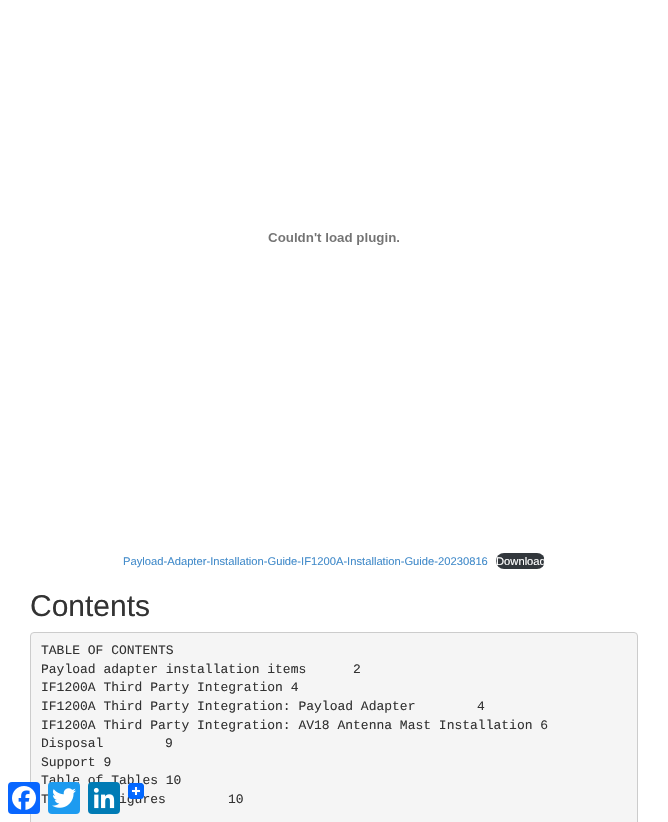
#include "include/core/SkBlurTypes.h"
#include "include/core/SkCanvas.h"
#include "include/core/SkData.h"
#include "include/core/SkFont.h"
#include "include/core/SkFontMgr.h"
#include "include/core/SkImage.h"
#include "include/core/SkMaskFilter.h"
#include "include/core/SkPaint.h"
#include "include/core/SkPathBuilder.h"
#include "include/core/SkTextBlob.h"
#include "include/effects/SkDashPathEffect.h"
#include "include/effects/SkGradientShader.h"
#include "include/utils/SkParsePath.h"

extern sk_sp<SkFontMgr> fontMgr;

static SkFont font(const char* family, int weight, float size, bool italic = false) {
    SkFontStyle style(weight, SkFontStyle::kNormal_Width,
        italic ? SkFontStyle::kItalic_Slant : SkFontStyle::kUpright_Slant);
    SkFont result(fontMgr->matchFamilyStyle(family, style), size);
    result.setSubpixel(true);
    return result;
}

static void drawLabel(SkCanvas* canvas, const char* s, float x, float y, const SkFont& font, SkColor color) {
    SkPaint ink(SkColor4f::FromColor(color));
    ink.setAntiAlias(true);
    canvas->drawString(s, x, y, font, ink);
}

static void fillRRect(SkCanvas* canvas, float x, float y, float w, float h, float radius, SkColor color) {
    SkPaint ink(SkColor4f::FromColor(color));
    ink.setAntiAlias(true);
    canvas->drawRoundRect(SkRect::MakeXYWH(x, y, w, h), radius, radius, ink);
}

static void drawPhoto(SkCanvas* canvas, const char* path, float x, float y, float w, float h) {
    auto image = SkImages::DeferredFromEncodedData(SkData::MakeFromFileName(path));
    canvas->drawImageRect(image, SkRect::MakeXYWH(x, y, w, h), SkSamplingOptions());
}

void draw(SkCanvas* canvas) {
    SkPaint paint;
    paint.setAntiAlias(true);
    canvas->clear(0xFFFFFFFF);
    drawPhoto(canvas, "assets/img1.png", 268, 233, 131, 12);
    SkFont font1 = font("Liberation Sans", 400, 11.2f);
    drawLabel(canvas, "Payload-Adapter-Installation-Guide-IF1200A-Installation-Guide-20230816", 123, 565, font1, 0xFF428BCA);
    fillRRect(canvas, 496, 553, 49, 16, 8, 0xFF32373C);
    drawLabel(canvas, "Download", 496, 565, font1, 0xFFFFFFFF);
    SkFont font2 = font("Liberation Sans", 400, 30);
    drawLabel(canvas, "Contents", 30, 616, font2, 0xFF333333);
    paint.setColor(0xFFF5F5F5);
    canvas->drawRoundRect(SkRect::MakeXYWH(30.5f, 632.5f, 607, 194), 3.5f, 3.5f, paint);
    paint.setStroke(true);
    paint.setStrokeWidth(1);
    paint.setColor(0xFFCCCCCC);
    canvas->drawRoundRect(SkRect::MakeXYWH(30.5f, 632.5f, 607, 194), 3.5f, 3.5f, paint);
    SkFont font3 = font("Liberation Mono", 400, 13);
    drawLabel(canvas, "TABLE OF CONTENTS", 41, 654, font3, 0xFF333333);
    drawLabel(canvas, "Payload adapter installation items", 41, 673, font3, 0xFF333333);
    drawLabel(canvas, "2", 353, 673, font3, 0xFF333333);
    drawLabel(canvas, "IF1200A Third Party Integration 4", 41, 691, font3, 0xFF333333);
    drawLabel(canvas, "IF1200A Third Party Integration: Payload Adapter", 41, 710, font3, 0xFF333333);
    drawLabel(canvas, "4", 477, 710, font3, 0xFF333333);
    drawLabel(canvas, "IF1200A Third Party Integration: AV18 Antenna Mast Installation 6", 41, 729, font3, 0xFF333333);
    drawLabel(canvas, "Disposal", 41, 747, font3, 0xFF333333);
    drawLabel(canvas, "9", 165, 747, font3, 0xFF333333);
    drawLabel(canvas, "Support 9", 41, 766, font3, 0xFF333333);
    drawLabel(canvas, "Table of Tables 10", 41, 784, font3, 0xFF333333);
    drawLabel(canvas, "T", 41, 803, font3, 0xFF333333);
    drawLabel(canvas, "igures", 119, 803, font3, 0xFF333333);
    drawLabel(canvas, "10", 228, 803, font3, 0xFF333333);
    fillRRect(canvas, 8, 782, 32, 32, 4, 0xFF0866FF);
    drawPhoto(canvas, "assets/img2.png", 12, 786, 24, 24);
    fillRRect(canvas, 48, 782, 32, 32, 4, 0xFF1D9BF0);
    drawPhoto(canvas, "assets/img3.png", 52, 788, 24, 20);
    fillRRect(canvas, 88, 782, 32, 32, 4, 0xFF007BB5);
    drawPhoto(canvas, "assets/img4.png", 93, 787, 22, 22);
    drawPhoto(canvas, "assets/img5.png", 128, 783, 16, 16);
}
